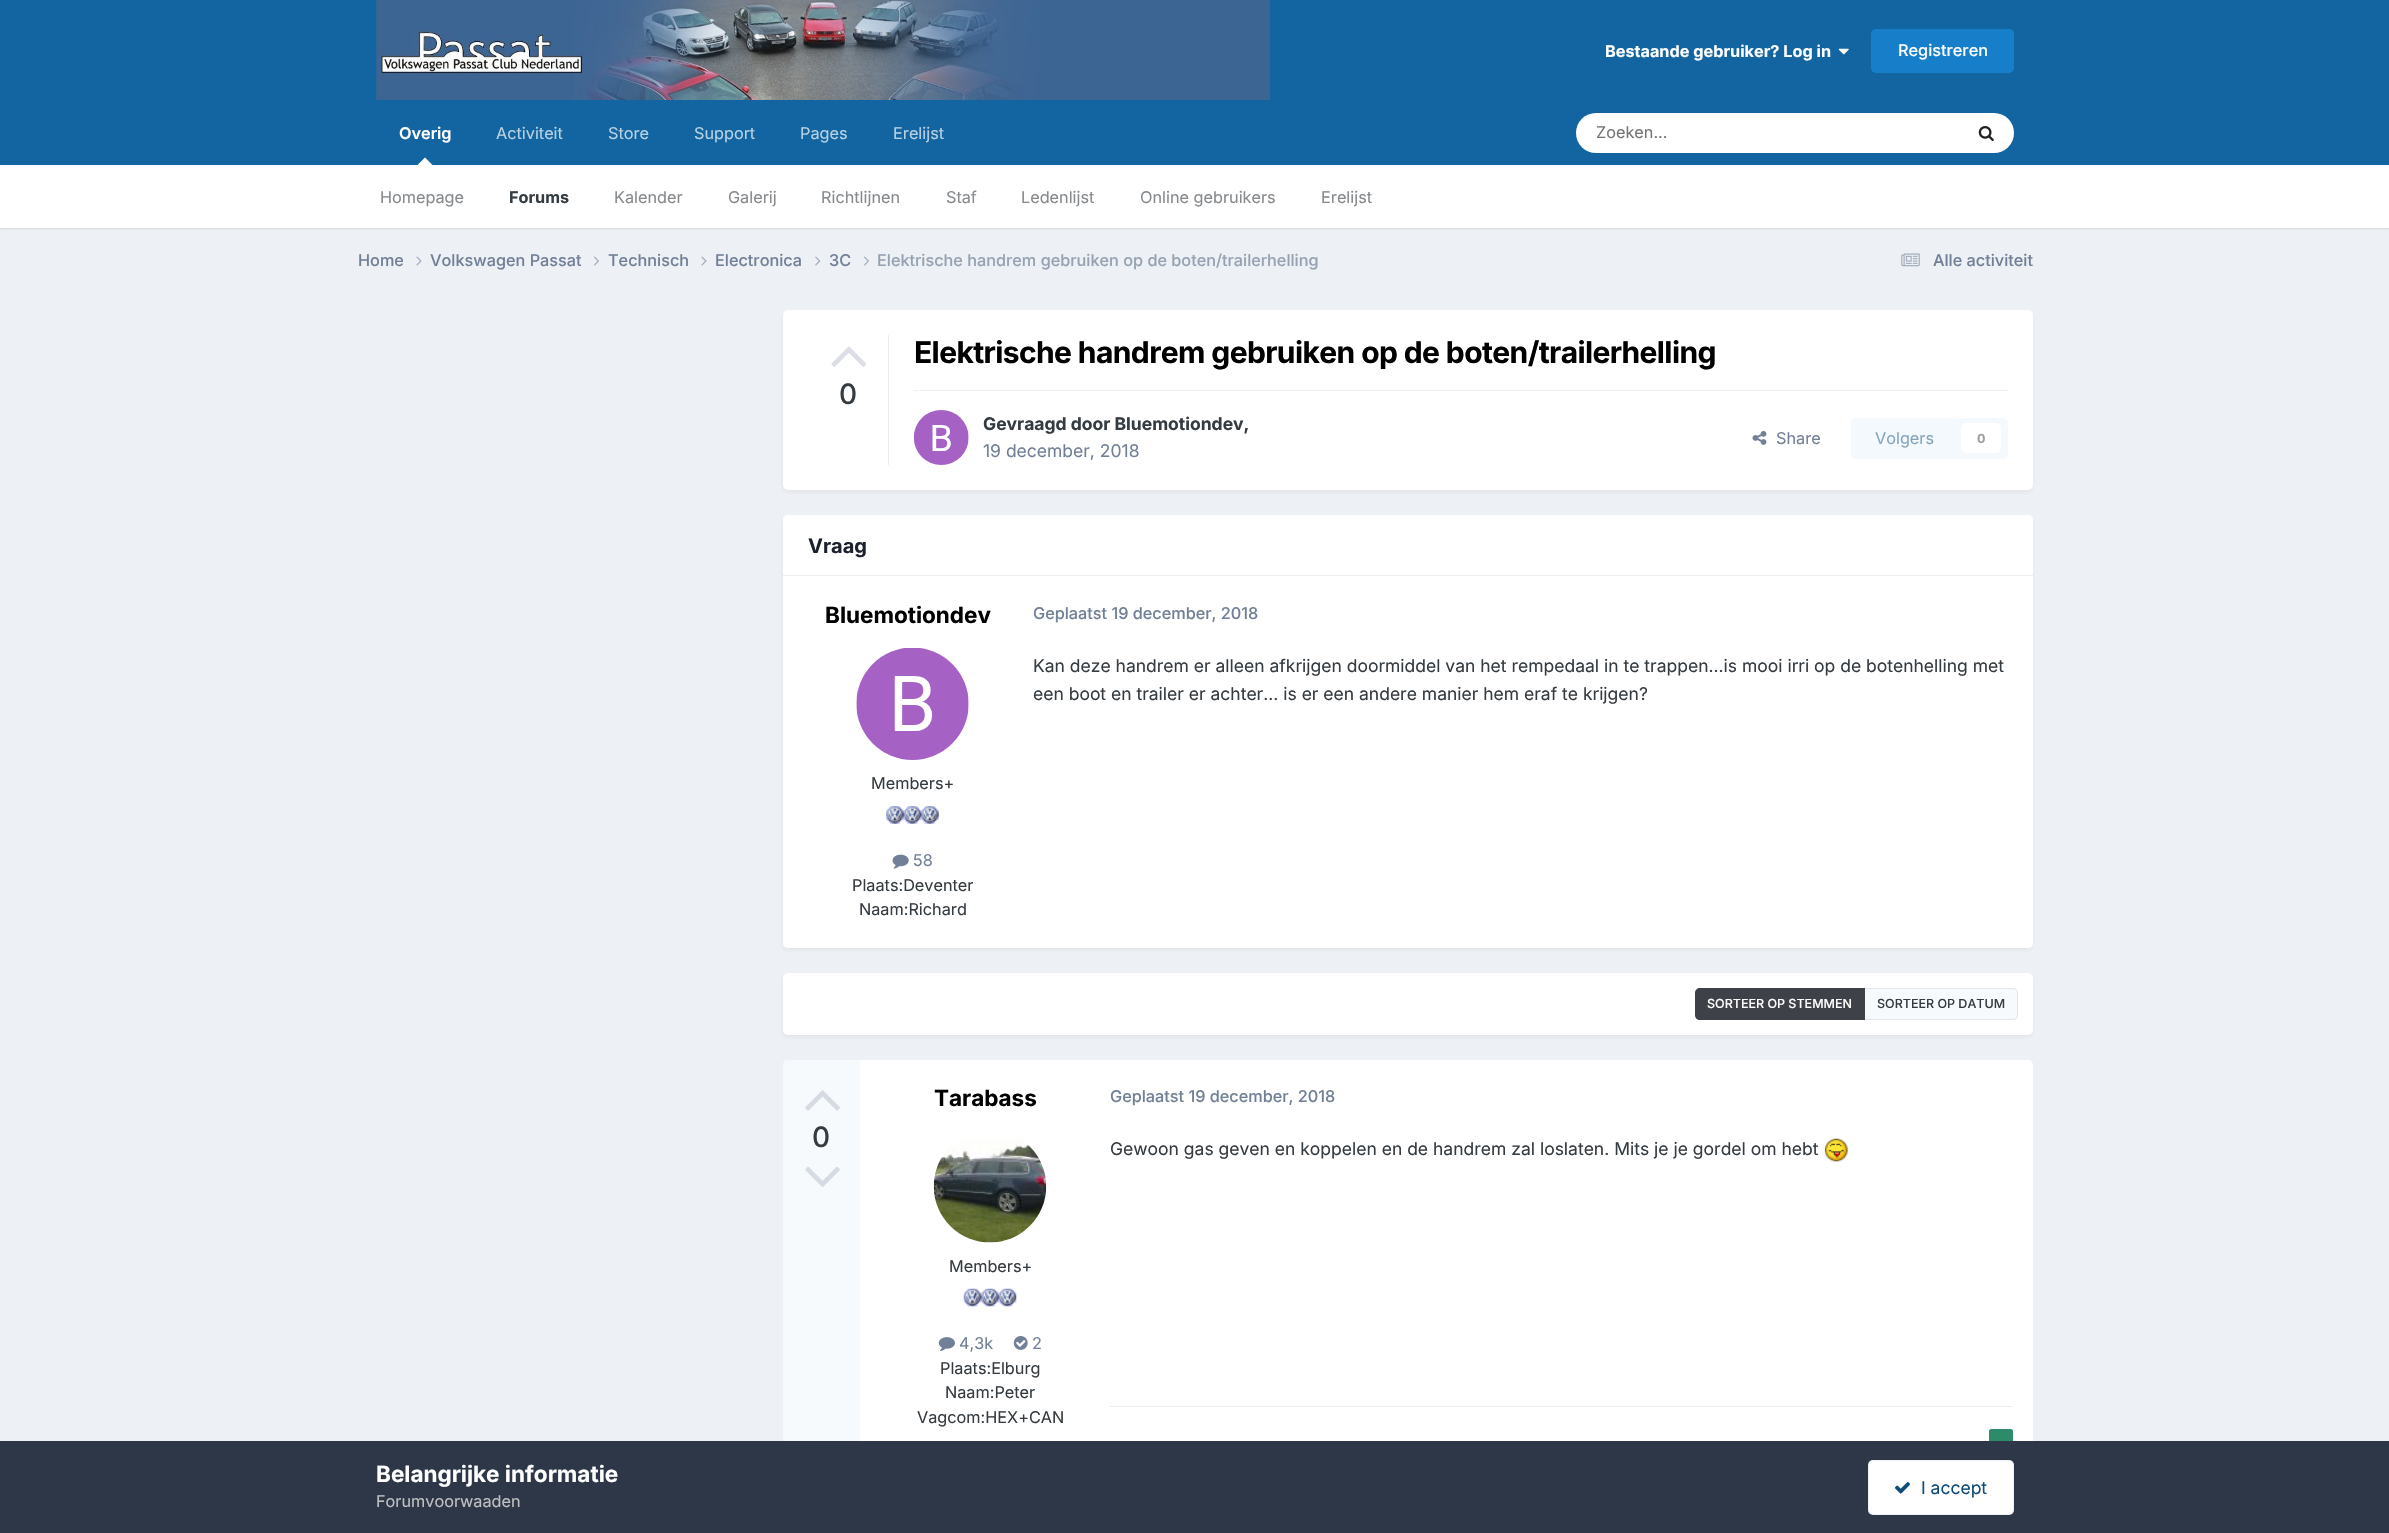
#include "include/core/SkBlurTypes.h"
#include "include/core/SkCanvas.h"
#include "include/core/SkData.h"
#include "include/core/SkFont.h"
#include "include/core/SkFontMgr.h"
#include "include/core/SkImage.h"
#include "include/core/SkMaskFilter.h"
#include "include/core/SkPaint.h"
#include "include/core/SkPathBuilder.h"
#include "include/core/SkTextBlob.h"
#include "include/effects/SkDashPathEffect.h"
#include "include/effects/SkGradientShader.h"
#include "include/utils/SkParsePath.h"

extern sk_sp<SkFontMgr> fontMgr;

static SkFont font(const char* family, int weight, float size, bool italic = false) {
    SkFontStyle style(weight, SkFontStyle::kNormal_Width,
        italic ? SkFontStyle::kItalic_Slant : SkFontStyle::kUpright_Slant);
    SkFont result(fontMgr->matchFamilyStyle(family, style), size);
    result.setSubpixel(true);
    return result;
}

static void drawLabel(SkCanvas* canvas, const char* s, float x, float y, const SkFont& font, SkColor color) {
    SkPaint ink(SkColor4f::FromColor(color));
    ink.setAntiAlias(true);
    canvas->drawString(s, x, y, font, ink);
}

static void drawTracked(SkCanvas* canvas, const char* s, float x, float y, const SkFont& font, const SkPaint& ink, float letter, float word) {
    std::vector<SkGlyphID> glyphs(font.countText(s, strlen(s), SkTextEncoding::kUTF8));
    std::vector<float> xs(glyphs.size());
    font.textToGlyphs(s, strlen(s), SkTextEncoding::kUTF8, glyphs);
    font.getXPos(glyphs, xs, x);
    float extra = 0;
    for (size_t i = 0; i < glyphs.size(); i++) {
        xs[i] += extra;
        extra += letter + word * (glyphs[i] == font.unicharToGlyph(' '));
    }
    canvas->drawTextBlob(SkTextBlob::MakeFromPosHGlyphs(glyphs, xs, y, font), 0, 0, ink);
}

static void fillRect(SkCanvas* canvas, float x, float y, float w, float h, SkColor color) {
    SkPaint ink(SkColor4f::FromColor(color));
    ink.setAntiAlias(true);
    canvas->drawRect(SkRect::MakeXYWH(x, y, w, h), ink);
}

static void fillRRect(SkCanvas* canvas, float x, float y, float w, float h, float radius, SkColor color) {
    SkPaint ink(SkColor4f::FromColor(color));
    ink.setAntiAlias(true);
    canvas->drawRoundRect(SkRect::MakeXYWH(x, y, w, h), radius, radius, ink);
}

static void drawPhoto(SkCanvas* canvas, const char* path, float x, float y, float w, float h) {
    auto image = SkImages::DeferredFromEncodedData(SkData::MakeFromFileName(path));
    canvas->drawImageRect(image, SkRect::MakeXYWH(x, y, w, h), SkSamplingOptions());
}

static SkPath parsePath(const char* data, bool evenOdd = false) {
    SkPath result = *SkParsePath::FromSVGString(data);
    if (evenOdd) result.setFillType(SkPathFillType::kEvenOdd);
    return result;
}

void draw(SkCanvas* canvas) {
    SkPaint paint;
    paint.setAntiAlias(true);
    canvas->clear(0xFFEDF0F4);
    fillRect(canvas, 0, 0, 2389, 165, 0xFF1265A1);
    drawPhoto(canvas, "assets/img1.png", 376, 0, 894, 100);
    SkFont font1 = font("Inter", 700, 16.25f);
    drawLabel(canvas, "Bestaande gebruiker? Log in", 1605, 57, font1, 0xFFFFFFFF);
    drawPhoto(canvas, "assets/img2.png", 1838, 48, 11, 7);
    fillRRect(canvas, 1871, 29, 143, 44, 5, 0xFF177EC9);
    SkFont font2 = font("Inter", 500, 16.25f);
    drawLabel(canvas, "Registreren", 1898, 56, font2, 0xFFFFFFFF);
    SkFont font3 = font("Inter", 600, 16.25f);
    drawLabel(canvas, "Overig", 399, 139, font3, 0xFFFFFFFF);
    paint.setColor(0x1A000000);
    paint.setMaskFilter(SkMaskFilter::MakeBlur(kNormal_SkBlurStyle, 1));
    canvas->drawRect(SkRect::MakeXYWH(0, 166, 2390, 63), paint);
    paint.setMaskFilter(nullptr);
    paint.setColor(0xFFFFFFFF);
    canvas->drawPath(parsePath("M432.5 165H417.5L425 157.5Z"), paint);
    fillRect(canvas, 0, 165, 2389, 63, 0xFFFFFFFF);
    SkFont font4 = font("Inter", 400, 16.25f);
    drawLabel(canvas, "Homepage", 380, 203, font4, 0xFF868A8D);
    drawLabel(canvas, "Forums", 509, 203, font1, 0xFF353C41);
    drawLabel(canvas, "Kalender", 614, 203, font4, 0xFF868A8D);
    drawLabel(canvas, "Galerij", 728, 203, font4, 0xFF868A8D);
    drawLabel(canvas, "Richtlijnen", 821, 203, font4, 0xFF868A8D);
    drawLabel(canvas, "Staf", 946, 203, font4, 0xFF868A8D);
    drawLabel(canvas, "Ledenlijst", 1021, 203, font4, 0xFF868A8D);
    drawLabel(canvas, "Online gebruikers", 1140, 203, font4, 0xFF868A8D);
    drawLabel(canvas, "Erelijst", 1321, 203, font4, 0xFF868A8D);
    drawLabel(canvas, "Activiteit", 496, 139, font4, 0xFFB8D1E3);
    drawLabel(canvas, "Store", 608, 139, font4, 0xFFB8D1E3);
    drawLabel(canvas, "Support", 694, 139, font4, 0xFFB8D1E3);
    drawLabel(canvas, "Pages", 800, 139, font4, 0xFFB8D1E3);
    drawLabel(canvas, "Erelijst", 893, 139, font4, 0xFFB8D1E3);
    fillRRect(canvas, 1576, 113, 438, 40, 20, 0xFFFFFFFF);
    drawLabel(canvas, "Zoeken...", 1596, 138, font4, 0xFF757575);
    drawPhoto(canvas, "assets/img3.png", 1978, 126, 16, 16);
    drawLabel(canvas, "Home", 358, 266, font2, 0xFF718096);
    drawPhoto(canvas, "assets/img4.png", 416, 256, 6, 10);
    drawLabel(canvas, "Volkswagen Passat", 430, 266, font2, 0xFF718096);
    drawPhoto(canvas, "assets/img5.png", 594, 256, 5, 10);
    drawLabel(canvas, "Technisch", 608, 266, font2, 0xFF718096);
    drawPhoto(canvas, "assets/img4.png", 701, 256, 6, 10);
    drawLabel(canvas, "Electronica", 715, 266, font2, 0xFF718096);
    drawPhoto(canvas, "assets/img6.png", 815, 256, 6, 10);
    drawLabel(canvas, "3C", 829, 266, font2, 0xFF718096);
    drawPhoto(canvas, "assets/img5.png", 864, 256, 5, 10);
    drawLabel(canvas, "Elektrische handrem gebruiken op de boten/trailerhelling", 877, 266, font2, 0xFF96A2B2);
    drawPhoto(canvas, "assets/img7.png", 1901, 253, 19, 14);
    drawLabel(canvas, "Alle activiteit", 1933, 266, font2, 0xFF718096);
    paint.setColor(0x1A2D3748);
    paint.setMaskFilter(SkMaskFilter::MakeBlur(kNormal_SkBlurStyle, 2.5f));
    canvas->drawRoundRect(SkRect::MakeXYWH(784, 314, 1247, 177), 4, 4, paint);
    paint.setMaskFilter(nullptr);
    fillRRect(canvas, 783, 310, 1250, 180, 5, 0xFFFFFFFF);
    fillRect(canvas, 888, 335, 1, 130, 0xFFEAECEF);
    drawPhoto(canvas, "assets/img8.png", 831, 346, 35, 21);
    SkFont font5 = font("Inter", 500, 28);
    drawLabel(canvas, "0", 839, 404, font5, 0xFF353C41);
    SkFont font6 = font("Inter", 700, 30);
    paint.setColor(0xFF000000);
    drawTracked(canvas, "Elektrische handrem gebruiken op de boten/trailerhelling", 914, 363, font6, paint, -0.6f, 0);
    fillRect(canvas, 914, 390, 1094, 1, 0xFFEFEFF0);
    drawPhoto(canvas, "assets/img9.png", 914, 410, 55, 55);
    SkFont font7 = font("Inter", 700, 17.5f);
    drawLabel(canvas, "Gevraagd door Bluemotiondev,", 983, 430, font7, 0xFF353C41);
    SkFont font8 = font("Inter", 400, 17.5f);
    drawLabel(canvas, "19 december, 2018", 983, 457, font8, 0xFF718096);
    drawPhoto(canvas, "assets/img10.png", 1752, 431, 15, 14);
    drawLabel(canvas, "Share", 1776, 444, font4, 0xFF718096);
    fillRRect(canvas, 1851, 418, 157, 41, 5, 0xFFF4F9FD);
    drawLabel(canvas, "Volgers", 1875, 444, font4, 0xFF87A6BC);
    fillRRect(canvas, 1961, 423, 40, 30, 5, 0xFFFFFFFF);
    SkFont font9 = font("Inter", 700, 12.5f);
    drawLabel(canvas, "0", 1977, 443, font9, 0xFF9A9EA0);
    paint.setColor(0x1A2D3748);
    paint.setMaskFilter(SkMaskFilter::MakeBlur(kNormal_SkBlurStyle, 2.5f));
    canvas->drawRoundRect(SkRect::MakeXYWH(784, 519, 1247, 430), 4, 4, paint);
    paint.setMaskFilter(nullptr);
    fillRRect(canvas, 783, 515, 1250, 433, 5, 0xFFFFFFFF);
    paint.setColor(0xFFFFFFFF);
    canvas->drawPath(parsePath("M788 515H2028C2031 515 2033 517 2033 520V576H783V520C783 517 785 515 788 515Z"), paint);
    fillRect(canvas, 783, 575, 1250, 1, 0xFFEAECEF);
    SkFont font10 = font("Inter", 700, 20);
    drawLabel(canvas, "Vraag", 808, 553, font10, 0xFF1A202C);
    fillRRect(canvas, 783, 576, 1250, 372, 5, 0xFFFFFFFF);
    SkFont font11 = font("Inter", 700, 22.5f);
    drawLabel(canvas, "Bluemotiondev", 825, 623, font11, 0xFF000000);
    drawPhoto(canvas, "assets/img11.png", 856, 648, 113, 112);
    drawLabel(canvas, "Members+", 871, 789, font4, 0xFF353C41);
    drawPhoto(canvas, "assets/img12.png", 886, 806, 53, 18);
    drawPhoto(canvas, "assets/img13.png", 892, 854, 17, 15);
    drawLabel(canvas, "58", 913, 866, font4, 0xFF718096);
    drawLabel(canvas, "Plaats:Deventer", 852, 891, font4, 0xFF353C41);
    drawLabel(canvas, "Naam:Richard", 859, 915, font4, 0xFF353C41);
    drawLabel(canvas, "Geplaatst 19 december, 2018", 1033, 619, font2, 0xFF718096);
    drawLabel(canvas, "Kan deze handrem er alleen afkrijgen doormiddel van het rempedaal in te trappen...is mooi irri op de botenhelling met", 1033, 672, font8, 0xFF353C41);
    drawLabel(canvas, "een boot en trailer er achter... is er een andere manier hem eraf te krijgen?", 1033, 700, font8, 0xFF353C41);
    paint.setColor(0x1A2D3748);
    paint.setMaskFilter(SkMaskFilter::MakeBlur(kNormal_SkBlurStyle, 2.5f));
    canvas->drawRoundRect(SkRect::MakeXYWH(784, 976, 1247, 60), 4, 4, paint);
    paint.setMaskFilter(nullptr);
    fillRRect(canvas, 783, 973, 1250, 62, 5, 0xFFFFFFFF);
    paint.setColor(0xFF3E4148);
    canvas->drawPath(parsePath("M1700 988H1865V1020H1700C1697 1020 1695 1018 1695 1015V993C1695 990 1697 988 1700 988Z"), paint);
    paint.setColor(0xFFF7FAFC);
    canvas->drawPath(parsePath("M1865 988H2013C2016 988 2018 990 2018 993V1015C2018 1018 2016 1020 2013 1020H1865Z"), paint);
    paint.setStroke(true);
    paint.setStrokeWidth(1);
    paint.setColor(0x1A353C41);
    canvas->drawRoundRect(SkRect::MakeXYWH(1695.5f, 988.5f, 322, 31), 4.5f, 4.5f, paint);
    SkFont font12 = font("Inter", 500, 12.5f);
    drawLabel(canvas, "SORTEER OP STEMMEN", 1707, 1008, font12, 0xFFFFFFFF);
    drawLabel(canvas, "SORTEER OP DATUM", 1877, 1008, font12, 0xFF353C41);
    fillRRect(canvas, 783, 1060, 1250, 419, 5, 0xFFFFFFFF);
    paint.setStroke(false);
    paint.setColor(0xFFF7FAFC);
    canvas->drawPath(parsePath("M788 1060H860V1479H788C785 1479 783 1477 783 1474V1065C783 1062 785 1060 788 1060Z"), paint);
    drawPhoto(canvas, "assets/img14.png", 805, 1090, 35, 21);
    drawLabel(canvas, "0", 812, 1147, font5, 0xFF353C41);
    drawPhoto(canvas, "assets/img15.png", 805, 1166, 35, 21);
    drawLabel(canvas, "Tarabass", 934, 1106, font11, 0xFF000000);
    drawPhoto(canvas, "assets/img16.png", 933, 1139, 114, 104);
    drawLabel(canvas, "Members+", 949, 1272, font4, 0xFF353C41);
    drawPhoto(canvas, "assets/img17.png", 963, 1288, 54, 19);
    drawPhoto(canvas, "assets/img18.png", 938, 1337, 17, 14);
    drawLabel(canvas, "4,3k", 959, 1349, font4, 0xFF718096);
    drawPhoto(canvas, "assets/img19.png", 1013, 1336, 15, 14);
    drawLabel(canvas, "2", 1032, 1349, font4, 0xFF718096);
    drawLabel(canvas, "Plaats:Elburg", 940, 1374, font4, 0xFF353C41);
    drawLabel(canvas, "Naam:Peter", 945, 1398, font4, 0xFF353C41);
    drawLabel(canvas, "Vagcom:HEX+CAN", 917, 1423, font4, 0xFF353C41);
    drawLabel(canvas, "Geplaatst 19 december, 2018", 1110, 1102, font2, 0xFF718096);
    drawLabel(canvas, "Gewoon gas geven en koppelen en de handrem zal loslaten. Mits je je gordel om hebt", 1110, 1155, font8, 0xFF353C41);
    drawPhoto(canvas, "assets/img20.png", 1824, 1138, 24, 24);
    fillRect(canvas, 1110, 1406, 903, 1, 0xFFEBECEC);
    fillRRect(canvas, 1989, 1429, 24, 30, 2.5f, 0xFF2C8C69);
    fillRect(canvas, 0, 1441, 2389, 92, 0xFF2D3748);
    drawLabel(canvas, "Belangrijke informatie", 376, 1482, font11, 0xFFFFFFFF);
    drawLabel(canvas, "Forumvoorwaaden", 376, 1507, font4, 0xFFC0C0C0);
    fillRRect(canvas, 1868, 1460, 146, 55, 5, 0xFFFFFFFF);
    paint.setStroke(true);
    paint.setColor(0x120E4C79);
    canvas->drawRoundRect(SkRect::MakeXYWH(1868.5f, 1460.5f, 145, 54), 4.5f, 4.5f, paint);
    drawPhoto(canvas, "assets/img21.png", 1895, 1482, 15, 12);
    drawLabel(canvas, "I accept", 1921, 1494, font8, 0xFF0E4C79);
}
